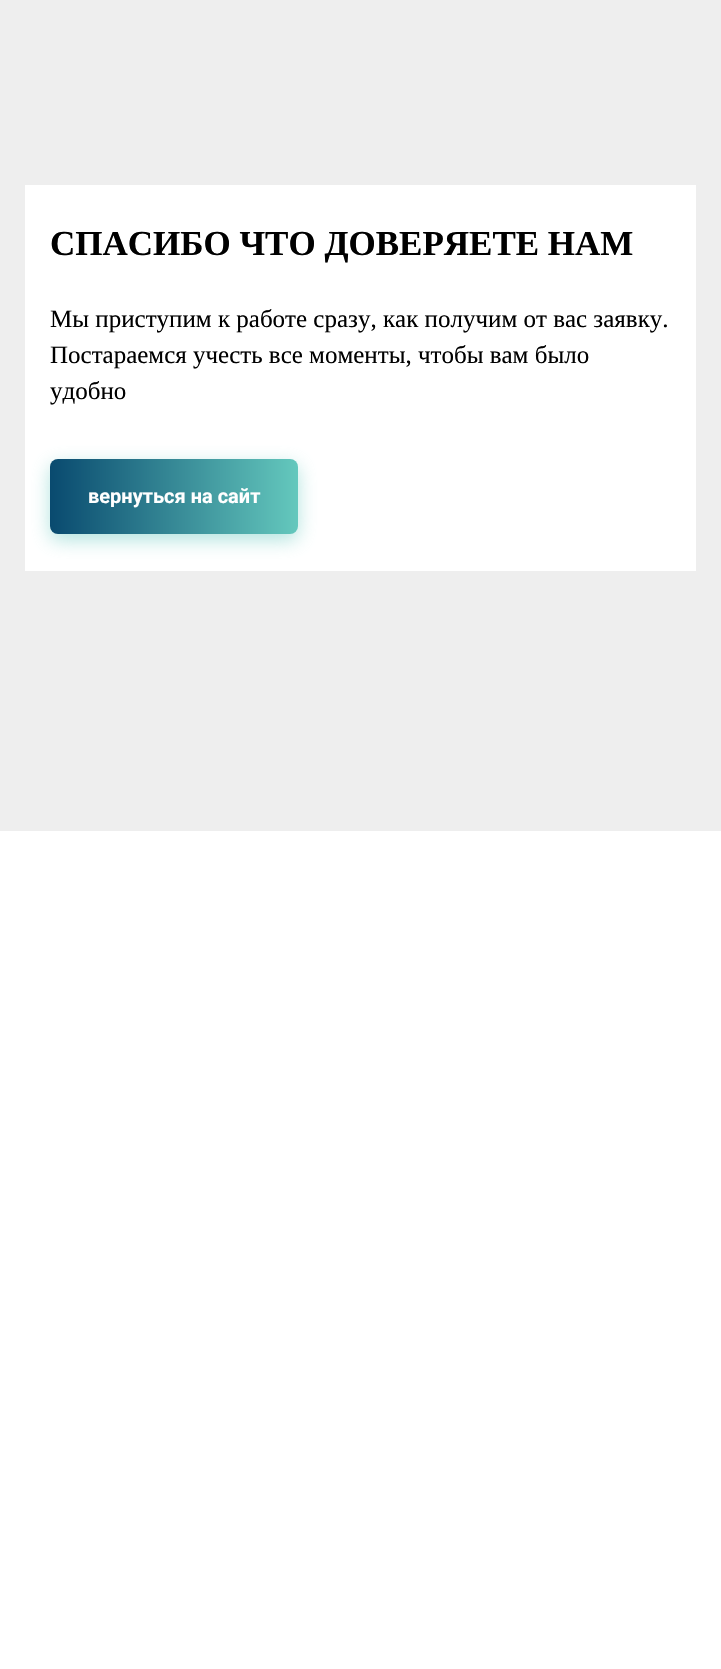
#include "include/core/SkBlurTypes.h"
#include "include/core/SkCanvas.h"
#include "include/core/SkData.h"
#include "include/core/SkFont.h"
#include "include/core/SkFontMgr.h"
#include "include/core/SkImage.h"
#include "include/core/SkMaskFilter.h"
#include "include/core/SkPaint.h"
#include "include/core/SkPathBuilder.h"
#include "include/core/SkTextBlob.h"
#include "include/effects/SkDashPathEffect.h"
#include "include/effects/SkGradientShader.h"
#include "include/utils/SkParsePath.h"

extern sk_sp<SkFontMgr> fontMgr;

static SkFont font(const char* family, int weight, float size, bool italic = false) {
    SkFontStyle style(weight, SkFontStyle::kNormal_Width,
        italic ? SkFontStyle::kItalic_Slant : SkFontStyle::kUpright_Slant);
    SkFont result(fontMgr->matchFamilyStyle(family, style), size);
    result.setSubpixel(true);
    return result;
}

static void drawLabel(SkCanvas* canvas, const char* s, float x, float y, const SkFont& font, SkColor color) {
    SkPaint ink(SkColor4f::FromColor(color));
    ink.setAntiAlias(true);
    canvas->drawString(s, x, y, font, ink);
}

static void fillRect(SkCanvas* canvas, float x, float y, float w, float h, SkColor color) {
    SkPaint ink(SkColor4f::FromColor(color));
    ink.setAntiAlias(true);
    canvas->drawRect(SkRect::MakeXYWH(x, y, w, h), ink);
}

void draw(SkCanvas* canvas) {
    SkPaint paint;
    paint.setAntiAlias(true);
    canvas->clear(0xFFFFFFFF);
    fillRect(canvas, 0, 0, 721, 831, 0xFFEEEEEE);
    fillRect(canvas, 25, 185, 671, 386, 0xFFFFFFFF);
    SkFont font1 = font("Liberation Serif", 700, 35);
    drawLabel(canvas, "СПАСИБО ЧТО ДОВЕРЯЕТЕ НАМ", 50, 255, font1, 0xFF000000);
    SkFont font2 = font("Liberation Serif", 400, 25);
    drawLabel(canvas, "Мы приступим к работе сразу, как получим от вас заявку.", 50, 327, font2, 0xFF000000);
    drawLabel(canvas, "Постараемся учесть все моменты, чтобы вам было", 50, 363, font2, 0xFF000000);
    drawLabel(canvas, "удобно", 50, 399, font2, 0xFF000000);
    paint.setColor(0x8064C8BD);
    paint.setMaskFilter(SkMaskFilter::MakeBlur(kNormal_SkBlurStyle, 9.5f));
    canvas->drawRoundRect(SkRect::MakeXYWH(50, 465, 248, 75), 8, 8, paint);
    paint.setMaskFilter(nullptr);
    {
        const SkColor colors[] = {0xFF64C8BD, 0xFF094A6F};
        const float stops[] = {0, 1};
        const SkPoint ends[] = {{298, 496}, {50, 496}};
        paint.setShader(SkGradientShader::MakeLinear(ends, colors, stops, 2, SkTileMode::kClamp));
        paint.setAlpha(255);
    }
    canvas->drawRoundRect(SkRect::MakeXYWH(50, 459, 248, 75), 8, 8, paint);
    SkFont font3 = font("Roboto", 700, 20);
    drawLabel(canvas, "вернуться на сайт", 88, 503, font3, 0xFFFFFFFF);
}
